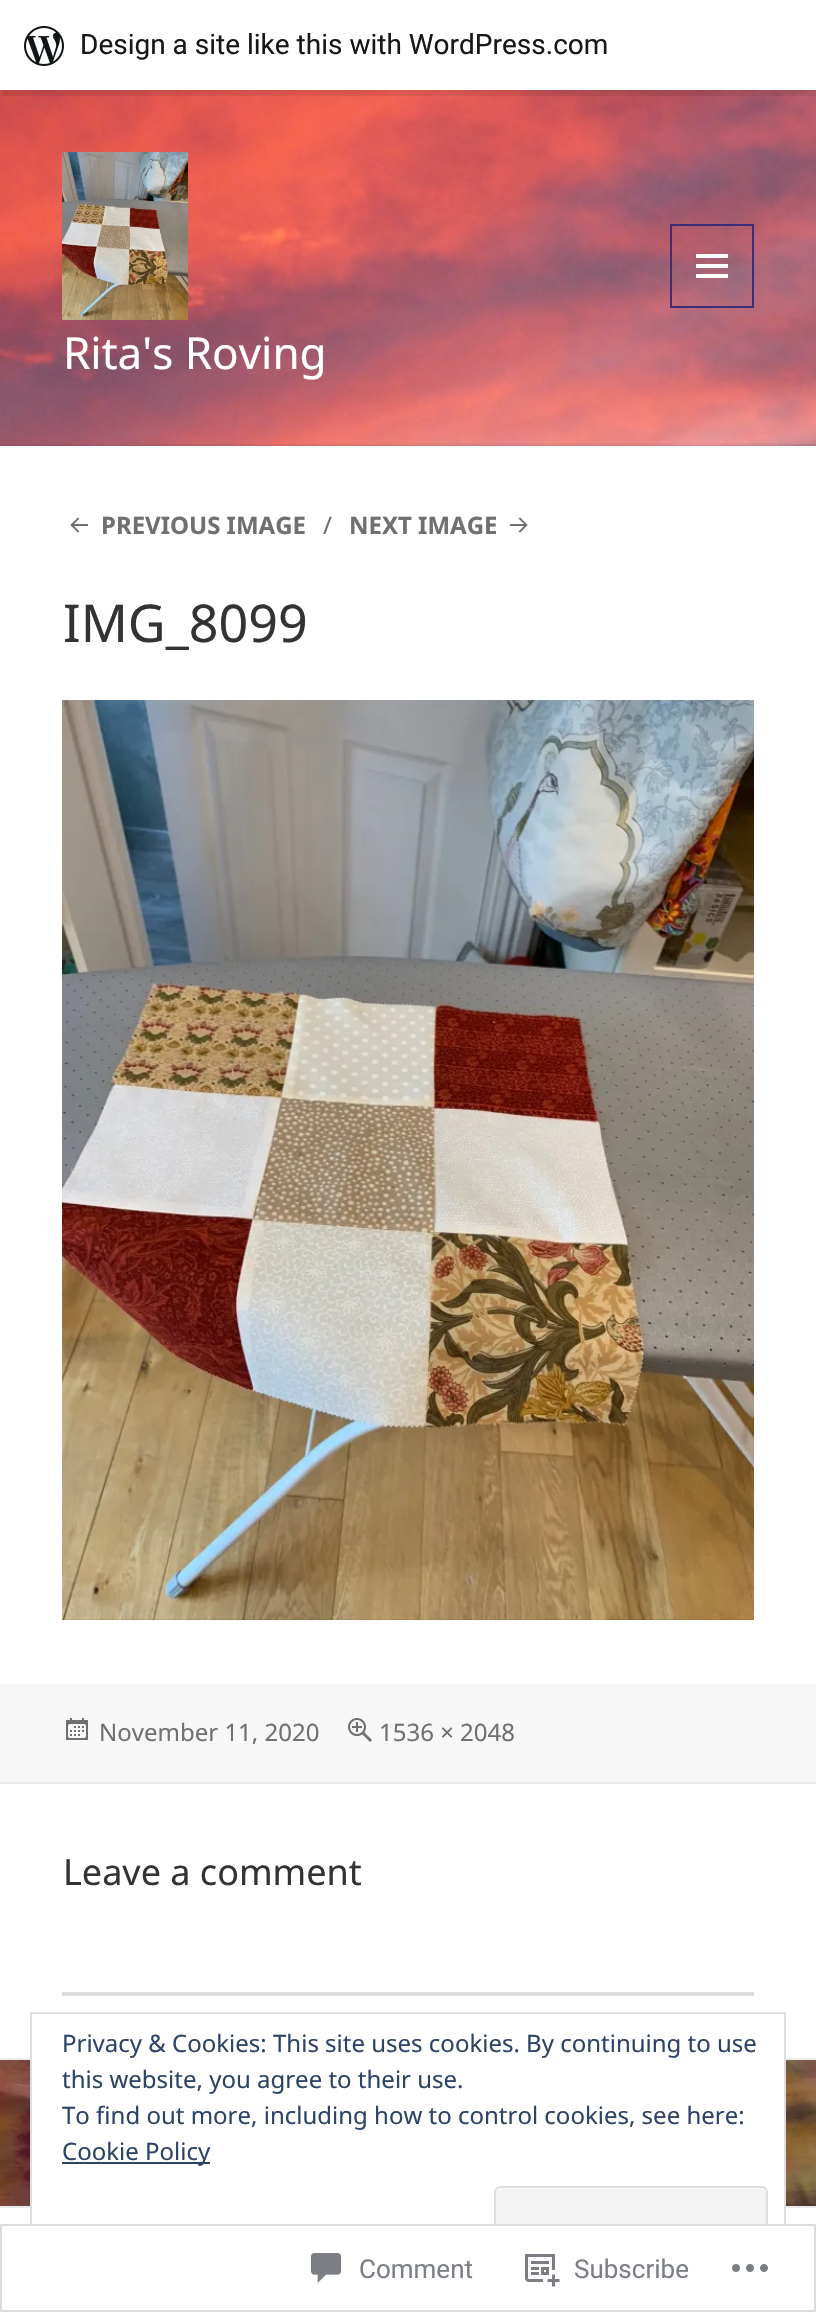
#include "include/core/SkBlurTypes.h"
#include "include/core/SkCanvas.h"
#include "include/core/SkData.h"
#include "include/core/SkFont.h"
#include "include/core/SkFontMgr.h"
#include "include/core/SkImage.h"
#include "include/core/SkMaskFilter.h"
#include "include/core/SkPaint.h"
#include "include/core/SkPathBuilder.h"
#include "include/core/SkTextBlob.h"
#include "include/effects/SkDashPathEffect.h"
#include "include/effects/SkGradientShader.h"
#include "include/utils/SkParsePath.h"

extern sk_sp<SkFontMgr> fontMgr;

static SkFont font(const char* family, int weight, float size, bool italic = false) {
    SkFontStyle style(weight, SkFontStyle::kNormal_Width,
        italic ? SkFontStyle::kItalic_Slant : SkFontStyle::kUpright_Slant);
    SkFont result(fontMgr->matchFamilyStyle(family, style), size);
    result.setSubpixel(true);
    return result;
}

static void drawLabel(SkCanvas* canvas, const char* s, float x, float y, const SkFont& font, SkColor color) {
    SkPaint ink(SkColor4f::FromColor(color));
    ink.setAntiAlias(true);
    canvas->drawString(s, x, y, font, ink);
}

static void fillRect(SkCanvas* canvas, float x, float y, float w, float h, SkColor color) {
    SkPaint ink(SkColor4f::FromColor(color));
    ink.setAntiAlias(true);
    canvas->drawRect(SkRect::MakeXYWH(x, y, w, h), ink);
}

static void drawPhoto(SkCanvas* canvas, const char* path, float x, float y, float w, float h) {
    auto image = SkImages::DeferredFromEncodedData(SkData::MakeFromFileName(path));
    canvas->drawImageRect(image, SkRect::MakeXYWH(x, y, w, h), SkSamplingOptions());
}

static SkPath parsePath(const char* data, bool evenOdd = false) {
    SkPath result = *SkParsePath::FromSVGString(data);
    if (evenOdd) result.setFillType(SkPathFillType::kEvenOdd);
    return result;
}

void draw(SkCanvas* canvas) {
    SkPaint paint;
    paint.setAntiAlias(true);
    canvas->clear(0xFFFFFFFF);
    drawPhoto(canvas, "assets/img2.png", 0, 90, 816, 356);
    paint.setColor(0x0D000000);
    paint.setMaskFilter(SkMaskFilter::MakeBlur(kNormal_SkBlurStyle, 2));
    canvas->drawRect(SkRect::MakeXYWH(0, 2, 816, 90), paint);
    paint.setMaskFilter(nullptr);
    paint.setColor(0x14000000);
    canvas->drawPath(parsePath("M2 90V96H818V6H816V90Z"), paint);
    fillRect(canvas, 0, 0, 816, 90, 0xFFFFFFFF);
    drawPhoto(canvas, "assets/img1.png", 24, 26, 40, 40);
    SkFont font1 = font("Roboto", 400, 28);
    drawLabel(canvas, "Design a site like this with WordPress.com", 80, 54, font1, 0xFF171717);
    fillRect(canvas, 0, 444, 816, 2, 0x1A333333);
    drawPhoto(canvas, "assets/img3.png", 62, 152, 126, 168);
    paint.setStroke(true);
    paint.setStrokeWidth(2);
    paint.setColor(0xFF3E2C77);
    canvas->drawRect(SkRect::MakeXYWH(671, 225, 82, 82), paint);
    drawPhoto(canvas, "assets/img4.png", 696, 254, 32, 24);
    SkFont font2 = font("Noto Sans", 400, 44);
    drawLabel(canvas, "Rita's Roving", 63, 369, font2, 0xFFFFFFFF);
    drawPhoto(canvas, "assets/img5.png", 70, 517, 18, 16);
    SkFont font3 = font("Noto Sans", 700, 24);
    drawLabel(canvas, "PREVIOUS IMAGE", 101, 534, font3, 0xFF707070);
    SkFont font4 = font("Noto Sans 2", 400, 24);
    drawLabel(canvas, "∕", 323, 534, font4, 0xFF707070);
    drawLabel(canvas, "NEXT IMAGE", 349, 534, font3, 0xFF707070);
    drawPhoto(canvas, "assets/img6.png", 510, 517, 18, 16);
    SkFont font5 = font("Noto Sans", 400, 52);
    drawLabel(canvas, "IMG_8099", 63, 642, font5, 0xFF333333);
    drawPhoto(canvas, "assets/img7.png", 62, 700, 692, 920);
    fillRect(canvas, 0, 1684, 816, 98, 0xFFF7F7F7);
    drawPhoto(canvas, "assets/img8.png", 66, 1718, 22, 22);
    SkFont font6 = font("Noto Sans", 400, 24);
    drawLabel(canvas, "November 11, 2020", 99, 1741, font6, 0xFF707070);
    drawPhoto(canvas, "assets/img9.png", 348, 1718, 24, 24);
    drawLabel(canvas, "1536 × 2048", 379, 1741, font6, 0xFF707070);
    fillRect(canvas, 0, 1782, 816, 2, 0xFFEBEBEB);
    SkFont font7 = font("Noto Sans", 400, 36);
    drawLabel(canvas, "Leave a comment", 63, 1885, font7, 0xFF333333);
    fillRect(canvas, 62, 1992, 692, 4, 0xFFDCDCDE);
    fillRect(canvas, 0, 2058, 816, 2, 0xFFEBEBEB);
    drawPhoto(canvas, "assets/img10.png", 0, 2060, 816, 146);
    fillRect(canvas, 0, 2206, 816, 2, 0xFFEBEBEB);
    fillRect(canvas, 32, 2058, 752, 150, 0xFFFFFFFF);
    paint.setColor(0xFFDEDEDE);
    canvas->drawRect(SkRect::MakeXYWH(31, 2013, 754, 268), paint);
    drawLabel(canvas, "Privacy & Cookies: This site uses cookies. By continuing to use", 62, 2052, font6, 0xFF2E4467);
    drawLabel(canvas, "this website, you agree to their use.", 62, 2088, font6, 0xFF2E4467);
    drawLabel(canvas, "To find out more, including how to control cookies, see here:", 62, 2124, font6, 0xFF2E4467);
    fillRect(canvas, 62, 2162, 148, 2, 0xFF2E4467);
    drawLabel(canvas, "Cookie Policy", 62, 2160, font6, 0xFF2E4467);
    paint.setStroke(false);
    paint.setColor(0xFFF3F3F3);
    canvas->drawRoundRect(SkRect::MakeXYWH(495, 2187, 272, 76), 5, 5, paint);
    paint.setStroke(true);
    paint.setColor(0xFFDEDEDE);
    canvas->drawRoundRect(SkRect::MakeXYWH(495, 2187, 272, 76), 5, 5, paint);
    fillRect(canvas, 30, 2224, 756, 58, 0xFAFFFFFF);
    paint.setColor(0xFADCDCDE);
    canvas->drawRect(SkRect::MakeXYWH(1, 2225, 814, 86), paint);
    drawPhoto(canvas, "assets/img11.png", 311, 2253, 30, 30);
    SkFont font8 = font("Roboto", 400, 26);
    drawLabel(canvas, "Comment", 359, 2278, font8, 0xFF7B7F85);
    drawPhoto(canvas, "assets/img12.png", 525, 2254, 35, 33);
    drawLabel(canvas, "Subscribe", 574, 2278, font8, 0xFF7B7F85);
    drawPhoto(canvas, "assets/img13.png", 732, 2264, 36, 8);
}
